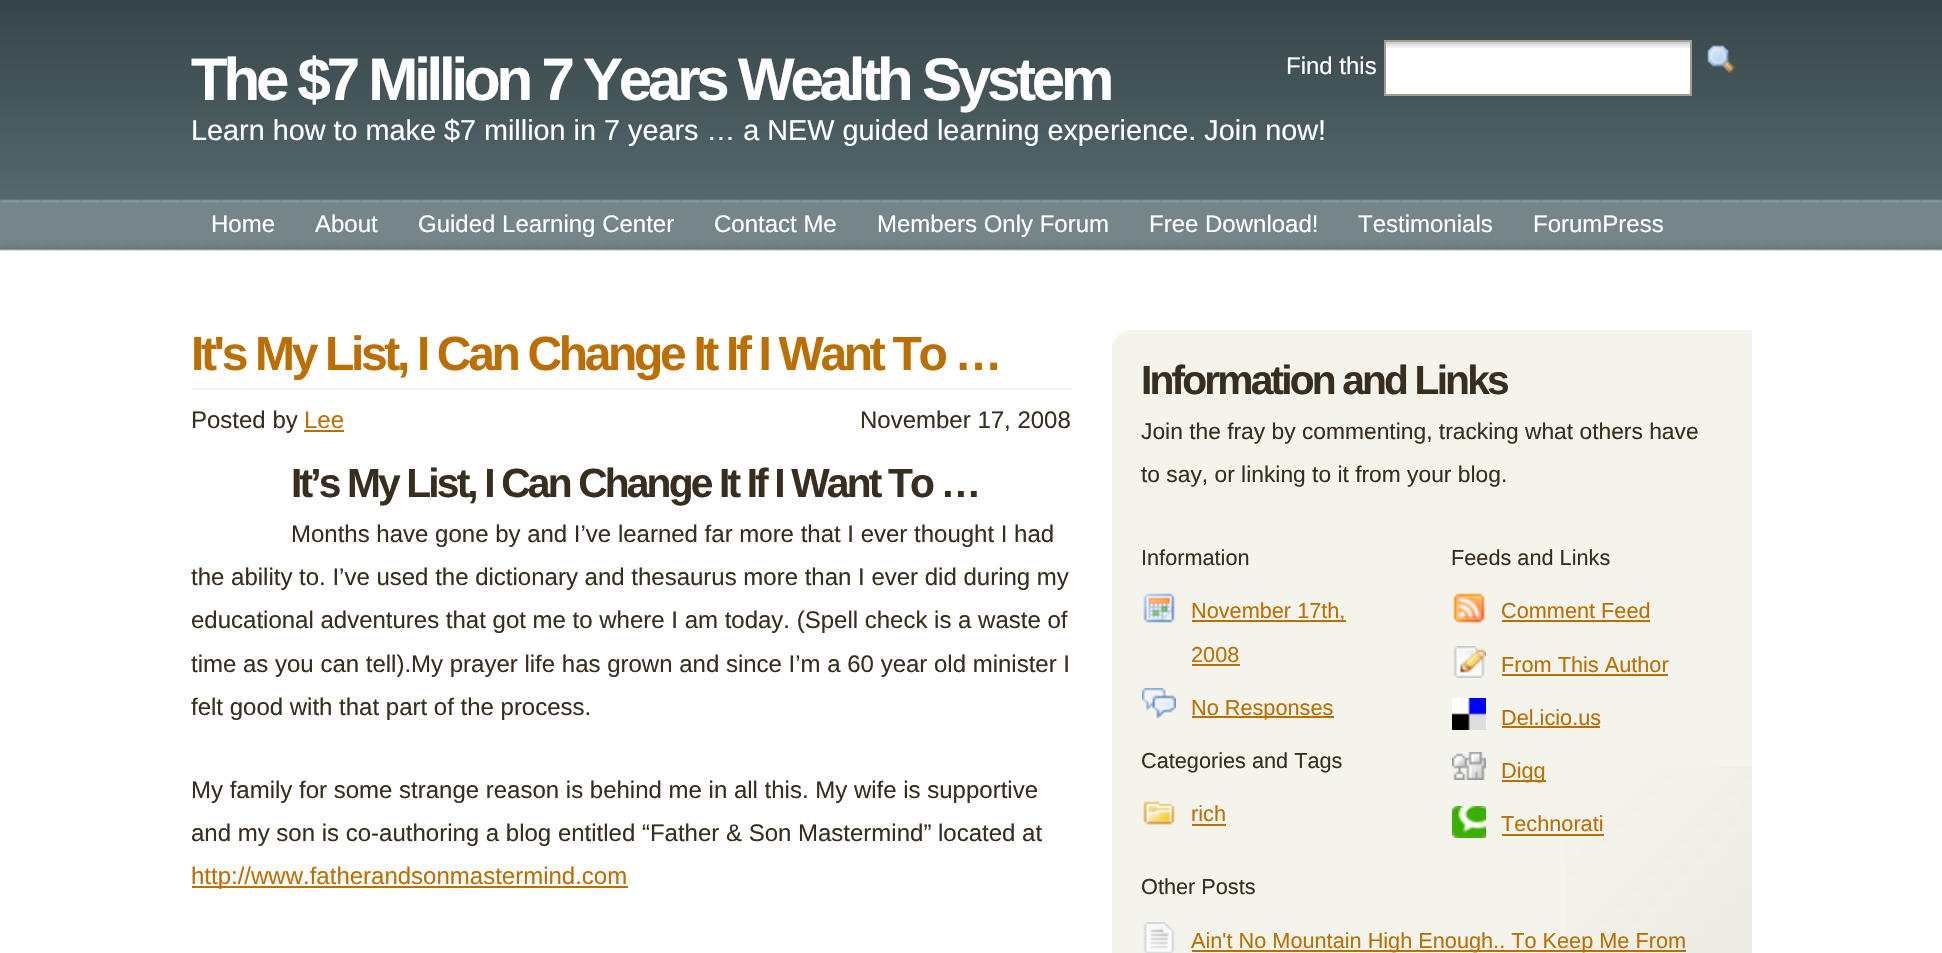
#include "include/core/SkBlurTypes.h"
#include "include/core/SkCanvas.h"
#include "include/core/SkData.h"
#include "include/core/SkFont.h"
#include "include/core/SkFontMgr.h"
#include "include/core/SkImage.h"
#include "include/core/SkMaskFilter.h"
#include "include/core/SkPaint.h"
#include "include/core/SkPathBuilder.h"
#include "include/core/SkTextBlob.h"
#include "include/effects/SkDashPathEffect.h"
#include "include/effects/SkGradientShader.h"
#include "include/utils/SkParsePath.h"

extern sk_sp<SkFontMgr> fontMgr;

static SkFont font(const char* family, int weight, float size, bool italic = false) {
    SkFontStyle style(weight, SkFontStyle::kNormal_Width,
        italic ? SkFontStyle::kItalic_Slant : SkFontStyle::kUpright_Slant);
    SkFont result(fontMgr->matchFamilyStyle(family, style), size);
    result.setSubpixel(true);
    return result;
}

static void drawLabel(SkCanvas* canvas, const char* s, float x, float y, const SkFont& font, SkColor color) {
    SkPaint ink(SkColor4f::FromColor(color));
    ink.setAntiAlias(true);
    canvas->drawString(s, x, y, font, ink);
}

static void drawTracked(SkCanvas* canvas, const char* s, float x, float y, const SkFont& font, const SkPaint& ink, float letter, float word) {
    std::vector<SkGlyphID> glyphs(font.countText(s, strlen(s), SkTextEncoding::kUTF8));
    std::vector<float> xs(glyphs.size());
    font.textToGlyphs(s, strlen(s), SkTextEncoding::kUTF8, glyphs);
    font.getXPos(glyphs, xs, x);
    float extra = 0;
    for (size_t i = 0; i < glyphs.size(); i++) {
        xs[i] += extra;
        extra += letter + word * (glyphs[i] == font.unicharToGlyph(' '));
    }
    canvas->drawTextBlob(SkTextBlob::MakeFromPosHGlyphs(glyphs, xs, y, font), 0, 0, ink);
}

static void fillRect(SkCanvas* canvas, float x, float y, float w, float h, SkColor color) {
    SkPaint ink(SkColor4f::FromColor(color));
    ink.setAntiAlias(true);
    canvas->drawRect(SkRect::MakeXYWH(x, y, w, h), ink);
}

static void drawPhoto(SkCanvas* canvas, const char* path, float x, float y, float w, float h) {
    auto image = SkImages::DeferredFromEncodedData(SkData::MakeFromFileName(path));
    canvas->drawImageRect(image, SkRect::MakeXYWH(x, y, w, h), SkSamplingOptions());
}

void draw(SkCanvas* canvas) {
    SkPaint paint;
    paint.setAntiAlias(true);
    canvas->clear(0xFFFFFFFF);
    drawPhoto(canvas, "assets/img1.png", 0, 0, 1942, 251);
    SkFont font1 = font("Liberation Sans", 700, 60);
    paint.setColor(0xFFFFFFFF);
    drawTracked(canvas, "The $7 Million 7 Years Wealth System", 191, 100, font1, paint, -4.2f, 0);
    SkFont font2 = font("Liberation Sans", 400, 24);
    drawLabel(canvas, "Find this", 1286, 74, font2, 0xFFFFFFFF);
    fillRect(canvas, 1386, 48, 304, 46, 0xFFFFFFFF);
    drawPhoto(canvas, "assets/img2.png", 1386, 42, 304, 6);
    paint.setStroke(true);
    paint.setStrokeWidth(2);
    paint.setColor(0xFFA79D8F);
    canvas->drawRect(SkRect::MakeXYWH(1385, 41, 306, 54), paint);
    drawPhoto(canvas, "assets/img3.png", 1707, 45, 28, 28);
    SkFont font3 = font("Liberation Sans", 400, 28.8f);
    drawLabel(canvas, "Learn how to make $7 million in 7 years … a NEW guided learning experience. Join now!", 191, 140, font3, 0xFFFFFFFF);
    drawLabel(canvas, "Home", 211, 232, font2, 0xFFFFFFFF);
    drawLabel(canvas, "About", 315, 232, font2, 0xFFFFFFFF);
    drawLabel(canvas, "Guided Learning Center", 418, 232, font2, 0xFFFFFFFF);
    drawLabel(canvas, "Contact Me", 714, 232, font2, 0xFFFFFFFF);
    drawLabel(canvas, "Members Only Forum", 877, 232, font2, 0xFFFFFFFF);
    drawLabel(canvas, "Free Download!", 1149, 232, font2, 0xFFFFFFFF);
    drawLabel(canvas, "Testimonials", 1358, 232, font2, 0xFFFFFFFF);
    drawLabel(canvas, "ForumPress", 1533, 232, font2, 0xFFFFFFFF);
    fillRect(canvas, 192, 388, 880, 2, 0xFFF4F4EC);
    SkFont font4 = font("Liberation Sans", 700, 48);
    paint.setStroke(false);
    paint.setColor(0xFFBB6F02);
    drawTracked(canvas, "It's My List, I Can Change It If I Want To …", 191, 370, font4, paint, -3.35f, 0);
    drawLabel(canvas, "Posted by", 191, 428, font2, 0xFF382E1F);
    drawLabel(canvas, "Lee", 304, 428, font2, 0xFFBB6F02);
    fillRect(canvas, 304, 430, 40, 2, 0xFFBB6F02);
    drawLabel(canvas, "November 17, 2008", 860, 428, font2, 0xFF382E1F);
    SkFont font5 = font("Liberation Sans", 700, 40.75f);
    paint.setColor(0xFF382E1F);
    drawTracked(canvas, "It’s My List, I Can Change It If I Want To …", 291, 497, font5, paint, -2.85f, 0);
    drawLabel(canvas, "Months have gone by and I’ve learned far more that I ever thought I had", 291, 542, font2, 0xFF382E1F);
    drawLabel(canvas, "the ability to. I’ve used the dictionary and thesaurus more than I ever did during my", 191, 585, font2, 0xFF382E1F);
    drawLabel(canvas, "educational adventures that got me to where I am today. (Spell check is a waste of", 191, 628, font2, 0xFF382E1F);
    drawLabel(canvas, "time as you can tell).My prayer life has grown and since I’m a 60 year old minister I", 191, 672, font2, 0xFF382E1F);
    drawLabel(canvas, "felt good with that part of the process.", 191, 715, font2, 0xFF382E1F);
    drawLabel(canvas, "My family for some strange reason is behind me in all this. My wife is supportive", 191, 798, font2, 0xFF382E1F);
    drawLabel(canvas, "and my son is co-authoring a blog entitled “Father & Son Mastermind” located at", 191, 841, font2, 0xFF382E1F);
    fillRect(canvas, 192, 886, 436, 2, 0xFFBB6F02);
    drawLabel(canvas, "http://www.fatherandsonmastermind.com", 191, 884, font2, 0xFFBB6F02);
    fillRect(canvas, 1112, 330, 640, 623, 0xFFF4F4EC);
    drawPhoto(canvas, "assets/img4.png", 1565, 767, 187, 186);
    drawPhoto(canvas, "assets/img5.png", 1112, 330, 16, 16);
    drawTracked(canvas, "Information and Links", 1141, 394, font5, paint, -2.85f, 0);
    SkFont font6 = font("Liberation Sans", 400, 22.8f);
    drawLabel(canvas, "Join the fray by commenting, tracking what others have", 1141, 439, font6, 0xFF382E1F);
    drawLabel(canvas, "to say, or linking to it from your blog.", 1141, 482, font6, 0xFF382E1F);
    SkFont font7 = font("Liberation Sans", 400, 21.7f);
    drawLabel(canvas, "Information", 1141, 565, font7, 0xFF382E1F);
    drawPhoto(canvas, "assets/img6.png", 1143, 593, 32, 30);
    fillRect(canvas, 1192, 620, 154, 2, 0xFFBB6F02);
    drawLabel(canvas, "November 17th,", 1191, 618, font7, 0xFFBB6F02);
    drawLabel(canvas, "2008", 1191, 662, font7, 0xFFBB6F02);
    fillRect(canvas, 1192, 664, 48, 2, 0xFFBB6F02);
    drawPhoto(canvas, "assets/img7.png", 1142, 688, 34, 31);
    fillRect(canvas, 1192, 716, 142, 2, 0xFFBB6F02);
    drawLabel(canvas, "No Responses", 1191, 715, font7, 0xFFBB6F02);
    drawLabel(canvas, "Feeds and Links", 1451, 565, font7, 0xFF382E1F);
    drawPhoto(canvas, "assets/img8.png", 1453, 593, 32, 30);
    drawLabel(canvas, "Comment Feed", 1501, 618, font7, 0xFFBB6F02);
    fillRect(canvas, 1502, 620, 148, 2, 0xFFBB6F02);
    drawPhoto(canvas, "assets/img9.png", 1453, 646, 33, 32);
    drawLabel(canvas, "From This Author", 1501, 672, font7, 0xFFBB6F02);
    fillRect(canvas, 1502, 674, 166, 2, 0xFFBB6F02);
    drawPhoto(canvas, "assets/img10.png", 1452, 698, 34, 32);
    drawLabel(canvas, "Del.icio.us", 1501, 725, font7, 0xFFBB6F02);
    fillRect(canvas, 1502, 726, 98, 2, 0xFFBB6F02);
    drawPhoto(canvas, "assets/img11.png", 1452, 752, 34, 28);
    fillRect(canvas, 1502, 780, 44, 2, 0xFFBB6F02);
    drawLabel(canvas, "Digg", 1501, 778, font7, 0xFFBB6F02);
    drawPhoto(canvas, "assets/img12.png", 1452, 806, 34, 32);
    drawLabel(canvas, "Technorati", 1501, 831, font7, 0xFFBB6F02);
    fillRect(canvas, 1502, 834, 102, 2, 0xFFBB6F02);
    drawLabel(canvas, "Categories and Tags", 1141, 768, font7, 0xFF382E1F);
    drawPhoto(canvas, "assets/img13.png", 1143, 801, 32, 24);
    drawLabel(canvas, "rich", 1191, 821, font7, 0xFFBB6F02);
    fillRect(canvas, 1192, 824, 34, 2, 0xFFBB6F02);
    drawLabel(canvas, "Other Posts", 1141, 894, font7, 0xFF382E1F);
    drawPhoto(canvas, "assets/img14.png", 1143, 922, 32, 31);
    fillRect(canvas, 1192, 950, 494, 2, 0xFFBB6F02);
    drawLabel(canvas, "Ain't No Mountain High Enough.. To Keep Me From", 1191, 948, font7, 0xFFBB6F02);
}
